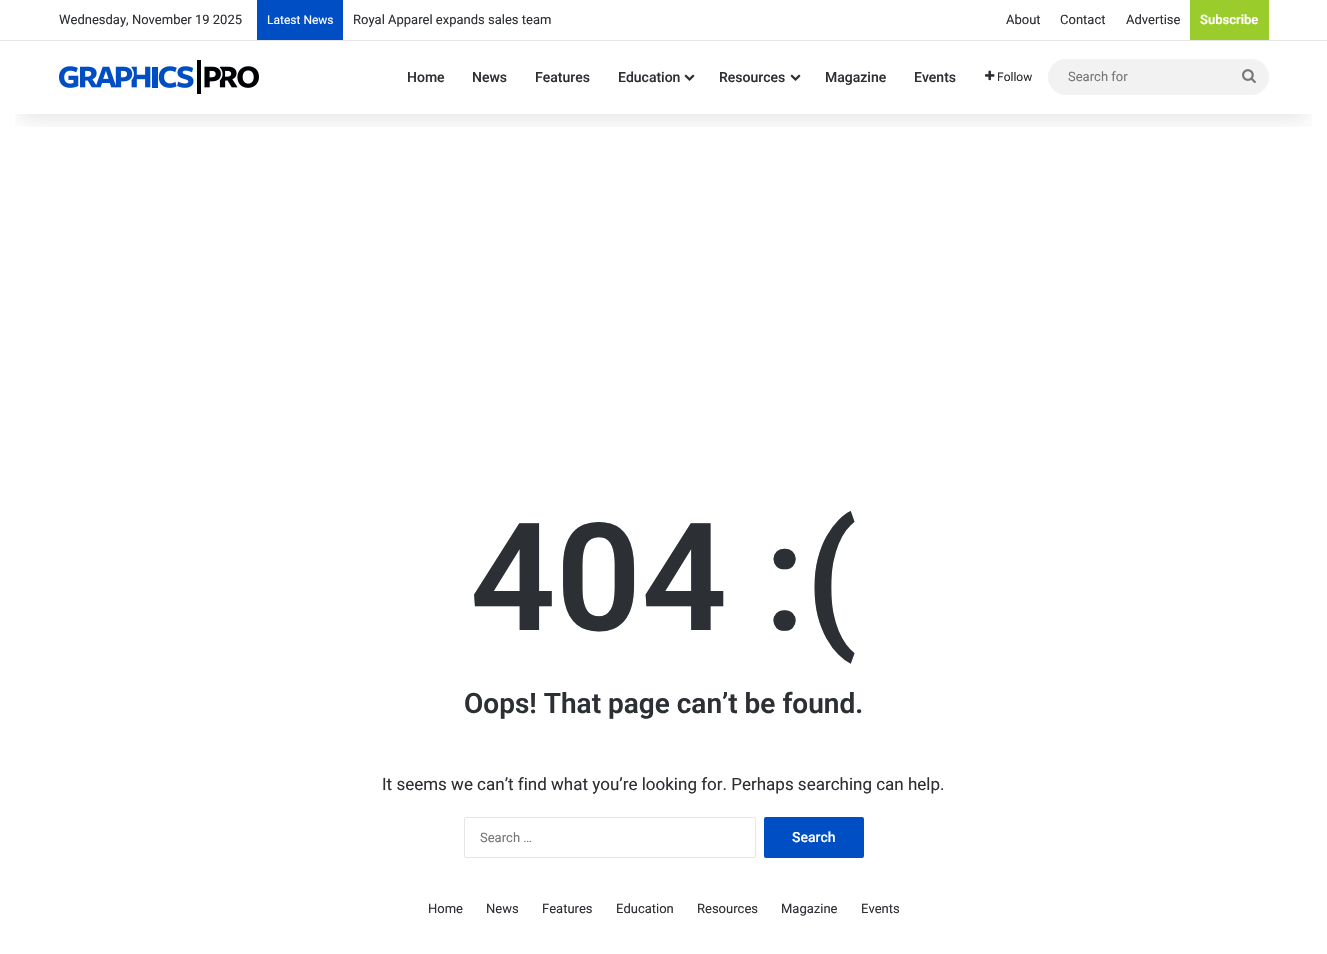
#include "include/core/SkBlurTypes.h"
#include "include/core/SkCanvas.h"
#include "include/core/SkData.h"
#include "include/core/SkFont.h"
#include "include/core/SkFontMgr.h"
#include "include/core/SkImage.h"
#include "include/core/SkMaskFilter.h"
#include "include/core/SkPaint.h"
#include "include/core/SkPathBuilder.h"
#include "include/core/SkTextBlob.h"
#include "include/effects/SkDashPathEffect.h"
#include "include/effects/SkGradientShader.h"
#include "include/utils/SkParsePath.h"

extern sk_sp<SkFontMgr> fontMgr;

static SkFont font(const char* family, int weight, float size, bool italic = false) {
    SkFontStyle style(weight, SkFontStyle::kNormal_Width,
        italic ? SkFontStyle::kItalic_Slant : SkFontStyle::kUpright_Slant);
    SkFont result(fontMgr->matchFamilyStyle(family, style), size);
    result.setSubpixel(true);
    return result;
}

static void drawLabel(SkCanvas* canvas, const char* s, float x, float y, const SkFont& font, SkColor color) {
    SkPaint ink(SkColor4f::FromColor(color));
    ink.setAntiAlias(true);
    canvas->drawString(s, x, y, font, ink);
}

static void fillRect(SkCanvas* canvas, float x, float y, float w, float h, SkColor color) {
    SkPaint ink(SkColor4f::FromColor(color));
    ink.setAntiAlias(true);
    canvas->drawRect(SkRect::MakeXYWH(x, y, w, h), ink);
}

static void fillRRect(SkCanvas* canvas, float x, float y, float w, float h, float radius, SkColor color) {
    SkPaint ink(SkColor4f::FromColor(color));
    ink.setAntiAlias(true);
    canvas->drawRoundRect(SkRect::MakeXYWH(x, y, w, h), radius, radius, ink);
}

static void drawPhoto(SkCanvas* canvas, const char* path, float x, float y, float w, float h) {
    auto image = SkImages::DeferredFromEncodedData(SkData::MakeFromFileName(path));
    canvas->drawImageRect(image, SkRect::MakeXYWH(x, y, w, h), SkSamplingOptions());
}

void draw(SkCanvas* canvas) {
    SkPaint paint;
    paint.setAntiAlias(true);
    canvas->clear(0xFFFFFFFF);
    canvas->save();
    canvas->clipRect(SkRect::MakeXYWH(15, 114, 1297, 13));
    paint.setColor(0x1A000000);
    paint.setMaskFilter(SkMaskFilter::MakeBlur(kNormal_SkBlurStyle, 10));
    canvas->drawRect(SkRect::MakeXYWH(20, 45, 1287, 74), paint);
    paint.setMaskFilter(nullptr);
    canvas->restore();
    fillRect(canvas, 0, 40, 1327, 1, 0xFFE6E6E6);
    SkFont font1 = font("Roboto", 400, 13);
    drawLabel(canvas, "Wednesday, November 19 2025", 59, 24, font1, 0xFF2C2F34);
    fillRect(canvas, 257, 0, 86, 40, 0xFF004EC3);
    SkFont font2 = font("Roboto", 400, 12);
    drawLabel(canvas, "Latest News", 267, 24, font2, 0xFFFFFFFF);
    drawLabel(canvas, "Royal Apparel expands sales team", 353, 24, font1, 0xFF2C2F34);
    drawLabel(canvas, "About", 1006, 24, font1, 0xFF2C2F34);
    drawLabel(canvas, "Contact", 1060, 24, font1, 0xFF2C2F34);
    drawLabel(canvas, "Advertise", 1126, 24, font1, 0xFF2C2F34);
    fillRect(canvas, 1190, 0, 79, 40, 0xFF9ACD2B);
    SkFont font3 = font("Roboto", 600, 13);
    drawLabel(canvas, "Subscribe", 1200, 24, font3, 0xFFFFFFFF);
    drawPhoto(canvas, "assets/img1.png", 59, 60, 200, 34);
    SkFont font4 = font("Roboto", 500, 14);
    drawLabel(canvas, "Home", 407, 82, font4, 0xFF2C2F34);
    drawLabel(canvas, "News", 472, 82, font4, 0xFF2C2F34);
    drawLabel(canvas, "Features", 535, 82, font4, 0xFF2C2F34);
    drawLabel(canvas, "Education", 618, 82, font4, 0xFF2C2F34);
    drawPhoto(canvas, "assets/img2.png", 684, 74, 11, 7);
    drawLabel(canvas, "Resources", 719, 82, font4, 0xFF2C2F34);
    drawPhoto(canvas, "assets/img2.png", 790, 74, 11, 7);
    drawLabel(canvas, "Magazine", 825, 82, font4, 0xFF2C2F34);
    drawLabel(canvas, "Events", 914, 82, font4, 0xFF2C2F34);
    drawPhoto(canvas, "assets/img3.png", 985, 70, 10, 11);
    drawLabel(canvas, "Follow", 997, 81, font2, 0xFF2C2F34);
    fillRRect(canvas, 1048, 59, 221, 36, 18, 0xFFF2F2F2);
    drawLabel(canvas, "Search for", 1068, 81, font1, 0xFF757575);
    drawPhoto(canvas, "assets/img4.png", 1242, 69, 14, 14);
    SkFont font5 = font("Roboto", 600, 150);
    drawLabel(canvas, "404 :(", 470, 630, font5, 0xFF2C2F34);
    SkFont font6 = font("Roboto", 600, 28);
    drawLabel(canvas, "Oops! That page can’t be found.", 464, 713, font6, 0xFF2C2F34);
    SkFont font7 = font("Roboto", 400, 17);
    drawLabel(canvas, "It seems we can’t find what you’re looking for. Perhaps searching can help.", 382, 790, font7, 0xFF2C2F34);
    paint.setStroke(true);
    paint.setStrokeWidth(1);
    paint.setColor(0xFFE6E6E6);
    canvas->drawRoundRect(SkRect::MakeXYWH(464.5f, 817.5f, 291, 40), 1.5f, 1.5f, paint);
    drawLabel(canvas, "Search …", 480, 842, font1, 0xFF757575);
    fillRRect(canvas, 764, 817, 100, 41, 2, 0xFF004EC3);
    drawLabel(canvas, "Search", 792, 842, font4, 0xFFFFFFFF);
    drawLabel(canvas, "Home", 428, 913, font1, 0xFF2C2F34);
    drawLabel(canvas, "News", 486, 913, font1, 0xFF2C2F34);
    drawLabel(canvas, "Features", 542, 913, font1, 0xFF2C2F34);
    drawLabel(canvas, "Education", 616, 913, font1, 0xFF2C2F34);
    drawLabel(canvas, "Resources", 697, 913, font1, 0xFF2C2F34);
    drawLabel(canvas, "Magazine", 781, 913, font1, 0xFF2C2F34);
    drawLabel(canvas, "Events", 861, 913, font1, 0xFF2C2F34);
}
